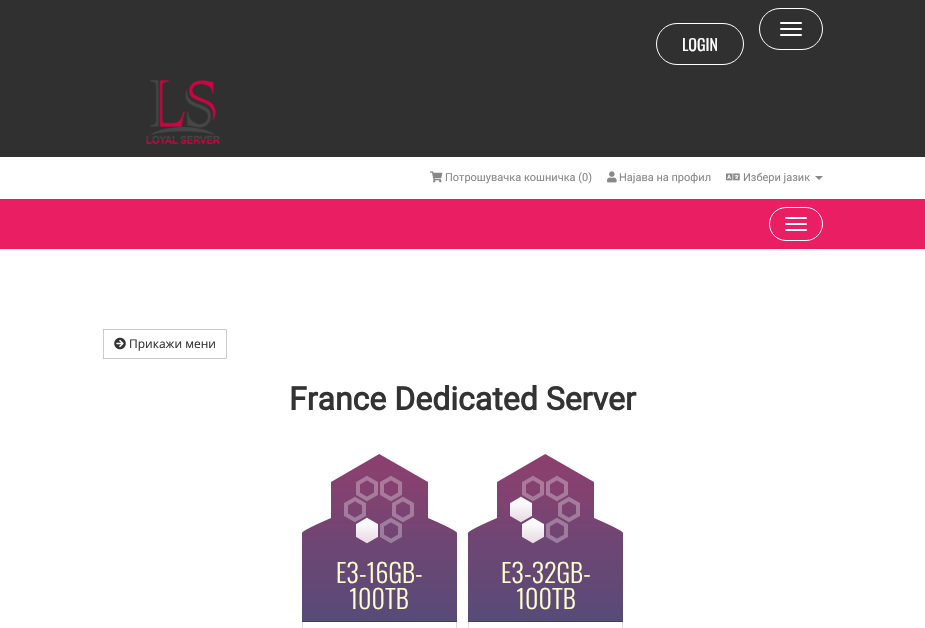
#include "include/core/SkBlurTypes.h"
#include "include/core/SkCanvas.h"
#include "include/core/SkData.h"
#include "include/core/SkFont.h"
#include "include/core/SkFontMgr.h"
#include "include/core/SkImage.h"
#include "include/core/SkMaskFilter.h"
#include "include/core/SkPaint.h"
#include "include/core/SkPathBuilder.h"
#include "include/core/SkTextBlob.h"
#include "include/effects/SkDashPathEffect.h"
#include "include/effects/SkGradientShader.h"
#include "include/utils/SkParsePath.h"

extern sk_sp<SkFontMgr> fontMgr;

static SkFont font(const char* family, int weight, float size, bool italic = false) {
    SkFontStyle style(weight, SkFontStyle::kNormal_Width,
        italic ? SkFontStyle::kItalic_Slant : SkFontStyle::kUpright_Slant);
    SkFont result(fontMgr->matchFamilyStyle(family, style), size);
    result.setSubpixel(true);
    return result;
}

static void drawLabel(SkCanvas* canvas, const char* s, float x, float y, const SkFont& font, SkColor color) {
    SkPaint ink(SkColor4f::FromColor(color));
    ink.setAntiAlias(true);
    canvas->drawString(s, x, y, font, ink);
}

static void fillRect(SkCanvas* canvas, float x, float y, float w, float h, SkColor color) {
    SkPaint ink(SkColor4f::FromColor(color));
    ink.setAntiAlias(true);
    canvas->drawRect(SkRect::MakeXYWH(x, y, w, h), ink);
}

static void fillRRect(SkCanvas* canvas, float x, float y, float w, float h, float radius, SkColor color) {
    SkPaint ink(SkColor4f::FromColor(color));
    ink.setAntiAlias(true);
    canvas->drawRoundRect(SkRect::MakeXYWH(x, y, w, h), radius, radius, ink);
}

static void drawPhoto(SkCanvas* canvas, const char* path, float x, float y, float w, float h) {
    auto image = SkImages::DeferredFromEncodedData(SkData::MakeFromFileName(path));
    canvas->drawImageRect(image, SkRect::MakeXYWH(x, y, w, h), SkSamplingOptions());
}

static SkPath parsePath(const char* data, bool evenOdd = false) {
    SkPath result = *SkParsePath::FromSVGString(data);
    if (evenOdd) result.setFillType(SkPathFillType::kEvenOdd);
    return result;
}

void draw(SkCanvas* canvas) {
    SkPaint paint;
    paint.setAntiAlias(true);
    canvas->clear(0xFFFFFFFF);
    fillRect(canvas, 0, 0, 925, 157, 0xFF303030);
    paint.setStroke(true);
    paint.setStrokeWidth(1);
    paint.setColor(0xFFFFFFFF);
    canvas->drawRoundRect(SkRect::MakeXYWH(656.5f, 23.5f, 87, 41), 20.5f, 20.5f, paint);
    SkFont font1 = font("Oswald", 400, 16);
    drawLabel(canvas, "LOGIN", 682, 51, font1, 0xFFFFFFFF);
    canvas->drawRoundRect(SkRect::MakeXYWH(759.5f, 8.5f, 63, 41), 20.5f, 20.5f, paint);
    fillRRect(canvas, 780, 22, 22, 2, 1, 0xFFFFFFFF);
    fillRRect(canvas, 780, 28, 22, 2, 1, 0xFFFFFFFF);
    fillRRect(canvas, 780, 34, 22, 2, 1, 0xFFFFFFFF);
    drawPhoto(canvas, "assets/img1.png", 146, 80, 75, 64);
    drawPhoto(canvas, "assets/img2.png", 430, 171, 13, 12);
    SkFont font2 = font("Roboto", 400, 11);
    drawLabel(canvas, "Потрошувачка кошничка (0)", 445, 181, font2, 0xFF888888);
    drawPhoto(canvas, "assets/img3.png", 607, 171, 10, 12);
    drawLabel(canvas, "Најава на профил", 619, 181, font2, 0xFF888888);
    drawPhoto(canvas, "assets/img4.png", 726, 173, 14, 8);
    drawLabel(canvas, "Избери јазик", 743, 181, font2, 0xFF888888);
    paint.setStroke(false);
    paint.setColor(0xFF888888);
    canvas->drawPath(parsePath("M815 176H823L819 180Z"), paint);
    fillRect(canvas, 0, 199, 925, 50, 0xFFE91E63);
    paint.setStroke(true);
    paint.setColor(0xFFFFFFFF);
    canvas->drawRoundRect(SkRect::MakeXYWH(769.5f, 207.5f, 53, 33), 16.5f, 16.5f, paint);
    fillRRect(canvas, 785, 217, 22, 2, 1, 0xFFFFFFFF);
    fillRRect(canvas, 785, 223, 22, 2, 1, 0xFFFFFFFF);
    fillRRect(canvas, 785, 229, 22, 2, 1, 0xFFFFFFFF);
    paint.setColor(0xFFCCCCCC);
    canvas->drawRect(SkRect::MakeXYWH(103.5f, 329.5f, 123, 29), paint);
    drawPhoto(canvas, "assets/img5.png", 114, 337, 12, 13);
    SkFont font3 = font("Open Sans", 400, 12);
    drawLabel(canvas, "Прикажи мени", 129, 348, font3, 0xFF333333);
    SkFont font4 = font("Roboto", 700, 32);
    drawLabel(canvas, "France Dedicated Server", 289, 410, font4, 0xFF333333);
    drawPhoto(canvas, "assets/img6.png", 302, 454, 155, 95);
    paint.setStroke(false);
    {
        const SkColor colors[] = {0xFF6D4674, 0xFF574B78};
        const float stops[] = {0, 1};
        const SkPoint ends[] = {{380, 549}, {380, 621}};
        paint.setShader(SkGradientShader::MakeLinear(ends, colors, stops, 2, SkTileMode::kClamp));
        paint.setAlpha(255);
    }
    canvas->drawRect(SkRect::MakeXYWH(302, 549, 155, 72), paint);
    fillRect(canvas, 302, 621, 155, 1, 0xFF463C60);
    SkFont font5 = font("Oswald", 300, 26);
    drawLabel(canvas, "E3-16GB-", 336, 583, font5, 0xFFFFFFCC);
    drawLabel(canvas, "100TB", 349, 609, font5, 0xFFFFFFCC);
    paint.setShader(nullptr);
    paint.setColor(0xFFD9D9D9);
    canvas->drawPath(parsePath("M302 622H457V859C457 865 453 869 447 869H312C306 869 302 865 302 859ZM303 622H456V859C456 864 452 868 447 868H312C307 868 303 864 303 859Z", true), paint);
    drawPhoto(canvas, "assets/img7.png", 468, 454, 155, 95);
    {
        const SkColor colors[] = {0xFF6D4674, 0xFF574B78};
        const float stops[] = {0, 1};
        const SkPoint ends[] = {{546, 549}, {546, 621}};
        paint.setShader(SkGradientShader::MakeLinear(ends, colors, stops, 2, SkTileMode::kClamp));
        paint.setAlpha(255);
    }
    canvas->drawRect(SkRect::MakeXYWH(468, 549, 155, 72), paint);
    fillRect(canvas, 468, 621, 155, 1, 0xFF463C60);
    drawLabel(canvas, "E3-32GB-", 501, 583, font5, 0xFFFFFFCC);
    drawLabel(canvas, "100TB", 516, 609, font5, 0xFFFFFFCC);
    paint.setShader(nullptr);
    paint.setColor(0xFFD9D9D9);
    canvas->drawPath(parsePath("M468 622H623V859C623 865 619 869 613 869H478C472 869 468 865 468 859ZM469 622H622V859C622 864 618 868 613 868H478C473 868 469 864 469 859Z", true), paint);
}
